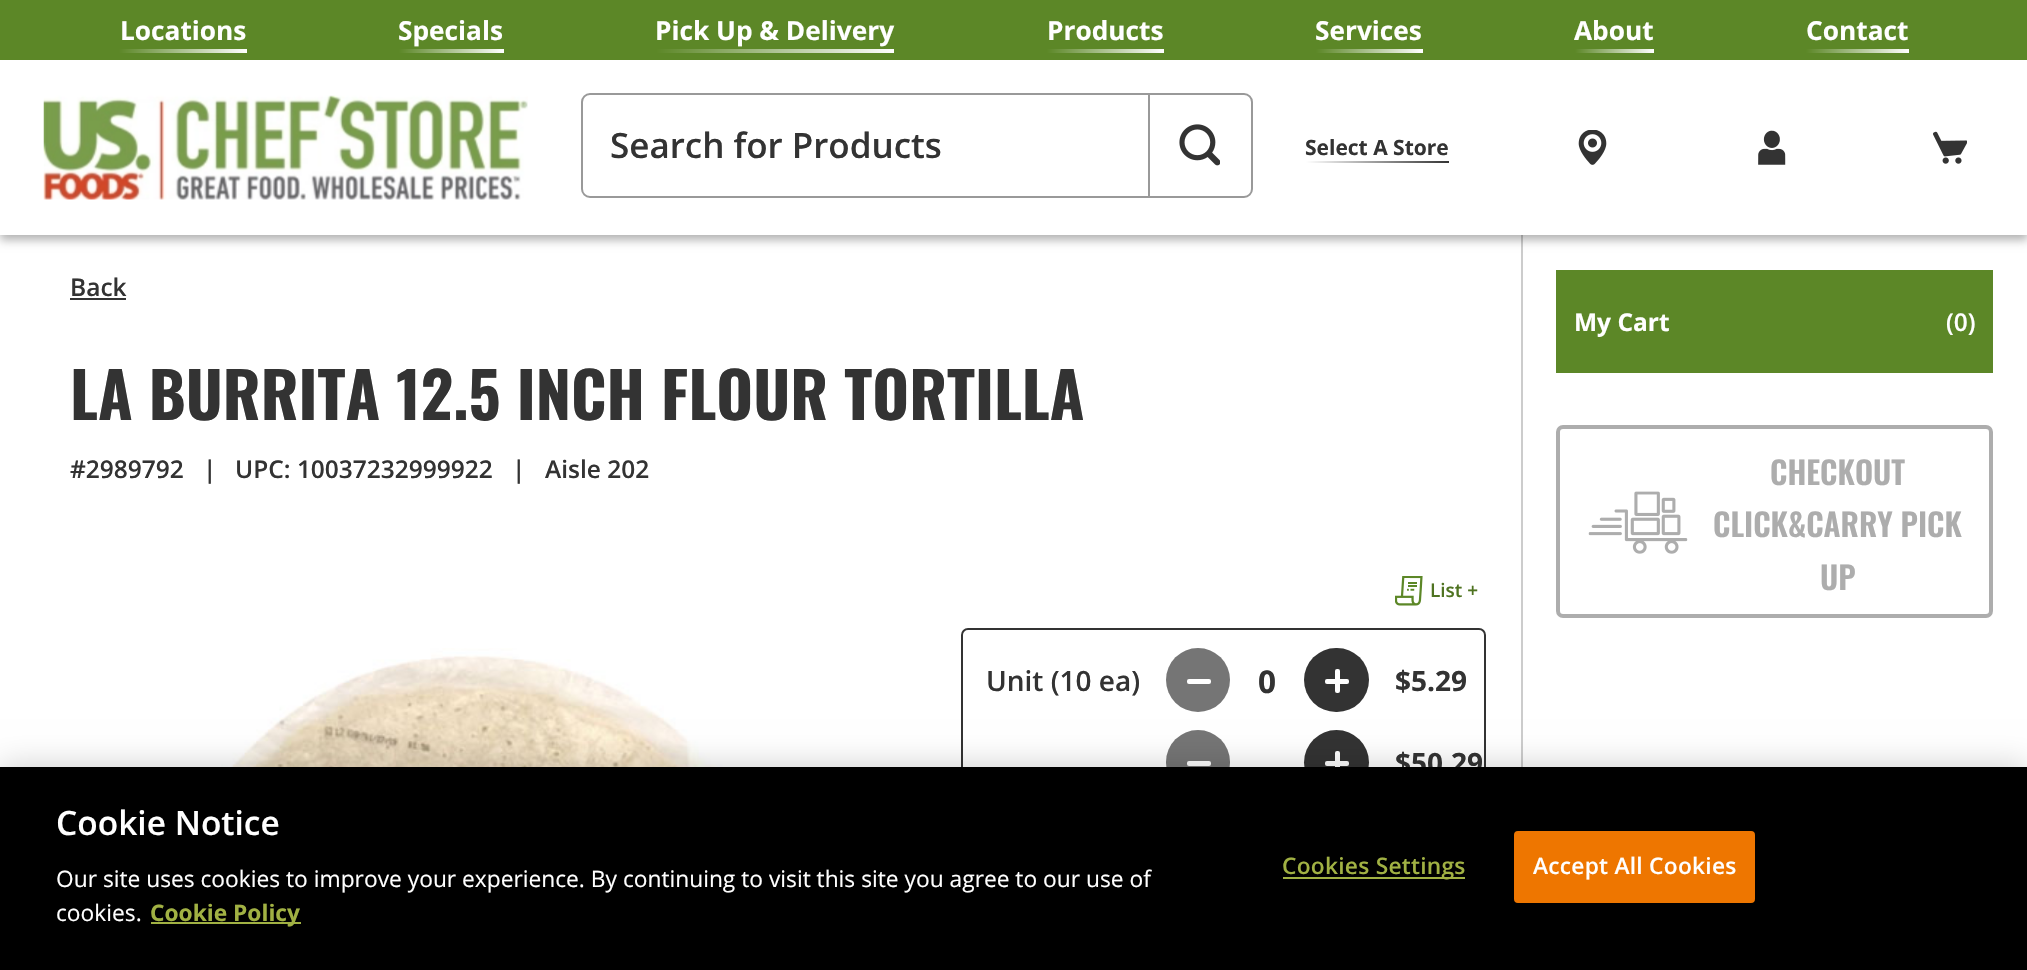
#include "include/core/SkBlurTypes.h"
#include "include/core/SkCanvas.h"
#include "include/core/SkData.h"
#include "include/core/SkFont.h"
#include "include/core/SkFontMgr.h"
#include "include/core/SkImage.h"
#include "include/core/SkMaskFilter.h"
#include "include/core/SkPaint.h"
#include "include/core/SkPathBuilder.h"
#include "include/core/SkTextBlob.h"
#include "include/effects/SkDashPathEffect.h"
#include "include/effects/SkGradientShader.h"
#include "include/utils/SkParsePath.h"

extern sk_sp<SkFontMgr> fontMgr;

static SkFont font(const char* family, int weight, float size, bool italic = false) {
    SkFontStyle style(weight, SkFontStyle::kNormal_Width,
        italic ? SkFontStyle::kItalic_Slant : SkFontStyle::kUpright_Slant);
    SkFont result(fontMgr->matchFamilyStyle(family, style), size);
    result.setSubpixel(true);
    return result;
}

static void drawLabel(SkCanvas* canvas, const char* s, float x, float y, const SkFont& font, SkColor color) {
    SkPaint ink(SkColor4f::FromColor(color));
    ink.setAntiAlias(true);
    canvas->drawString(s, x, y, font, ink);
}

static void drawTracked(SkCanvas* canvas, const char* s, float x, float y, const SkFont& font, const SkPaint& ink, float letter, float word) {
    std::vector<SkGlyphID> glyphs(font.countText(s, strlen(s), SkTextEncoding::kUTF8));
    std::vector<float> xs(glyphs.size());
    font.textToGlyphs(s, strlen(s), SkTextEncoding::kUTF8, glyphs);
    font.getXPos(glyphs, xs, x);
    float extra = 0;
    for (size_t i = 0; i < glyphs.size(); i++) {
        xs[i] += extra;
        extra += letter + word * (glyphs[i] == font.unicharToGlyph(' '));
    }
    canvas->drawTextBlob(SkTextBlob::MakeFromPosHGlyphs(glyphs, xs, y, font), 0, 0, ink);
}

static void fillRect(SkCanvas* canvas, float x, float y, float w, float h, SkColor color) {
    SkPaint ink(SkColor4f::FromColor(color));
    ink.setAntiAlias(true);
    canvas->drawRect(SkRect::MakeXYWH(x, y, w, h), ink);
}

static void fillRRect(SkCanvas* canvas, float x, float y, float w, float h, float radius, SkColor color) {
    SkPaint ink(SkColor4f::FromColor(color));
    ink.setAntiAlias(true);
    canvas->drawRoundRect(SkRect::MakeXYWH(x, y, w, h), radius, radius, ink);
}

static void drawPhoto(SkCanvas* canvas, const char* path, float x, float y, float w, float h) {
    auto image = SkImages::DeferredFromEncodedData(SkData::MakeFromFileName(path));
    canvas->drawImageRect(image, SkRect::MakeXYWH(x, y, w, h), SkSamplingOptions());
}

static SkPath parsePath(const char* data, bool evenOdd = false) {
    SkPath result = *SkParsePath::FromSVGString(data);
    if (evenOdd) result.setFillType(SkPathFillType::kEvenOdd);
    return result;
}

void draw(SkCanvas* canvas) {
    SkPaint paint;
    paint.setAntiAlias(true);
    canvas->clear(0xFFFFFFFF);
    fillRect(canvas, 1521, 235, 2, 532, 0xFFCCCCCC);
    paint.setColor(0x4D000000);
    paint.setMaskFilter(SkMaskFilter::MakeBlur(kNormal_SkBlurStyle, 4.5f));
    canvas->drawRect(SkRect::MakeXYWH(0, 5, 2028, 235), paint);
    paint.setMaskFilter(nullptr);
    fillRect(canvas, 0, 60, 2027, 175, 0xFFFFFFFF);
    fillRect(canvas, 0, 0, 2027, 60, 0xFF5C8727);
    {
        const SkColor colors[] = {0xFF5C8727, 0xFFFFFFFF};
        const float stops[] = {0, 0.5f};
        const SkPoint ends[] = {{119, 51}, {375, 51}};
        paint.setShader(SkGradientShader::MakeLinear(ends, colors, stops, 2, SkTileMode::kClamp));
        paint.setAlpha(255);
    }
    canvas->drawRect(SkRect::MakeXYWH(119, 49, 128, 4), paint);
    SkFont font1 = font("Open Sans", 700, 26.25f);
    drawLabel(canvas, "Locations", 120, 40, font1, 0xFFFFFFFF);
    {
        const SkColor colors[] = {0xFF5C8727, 0xFFFFFFFF};
        const float stops[] = {0, 0.5f};
        const SkPoint ends[] = {{399, 51}, {609, 51}};
        paint.setShader(SkGradientShader::MakeLinear(ends, colors, stops, 2, SkTileMode::kClamp));
        paint.setAlpha(255);
    }
    canvas->drawRect(SkRect::MakeXYWH(399, 49, 105, 4), paint);
    drawLabel(canvas, "Specials", 398, 40, font1, 0xFFFFFFFF);
    {
        const SkColor colors[] = {0xFF5C8727, 0xFFFFFFFF};
        const float stops[] = {0, 0.5f};
        const SkPoint ends[] = {{656, 51}, {1132, 51}};
        paint.setShader(SkGradientShader::MakeLinear(ends, colors, stops, 2, SkTileMode::kClamp));
        paint.setAlpha(255);
    }
    canvas->drawRect(SkRect::MakeXYWH(656, 49, 238, 4), paint);
    drawLabel(canvas, "Pick Up & Delivery", 655, 40, font1, 0xFFFFFFFF);
    {
        const SkColor colors[] = {0xFF5C8727, 0xFFFFFFFF};
        const float stops[] = {0, 0.5f};
        const SkPoint ends[] = {{1047, 51}, {1281, 51}};
        paint.setShader(SkGradientShader::MakeLinear(ends, colors, stops, 2, SkTileMode::kClamp));
        paint.setAlpha(255);
    }
    canvas->drawRect(SkRect::MakeXYWH(1047, 49, 117, 4), paint);
    drawLabel(canvas, "Products", 1047, 40, font1, 0xFFFFFFFF);
    {
        const SkColor colors[] = {0xFF5C8727, 0xFFFFFFFF};
        const float stops[] = {0, 0.5f};
        const SkPoint ends[] = {{1316, 51}, {1530, 51}};
        paint.setShader(SkGradientShader::MakeLinear(ends, colors, stops, 2, SkTileMode::kClamp));
        paint.setAlpha(255);
    }
    canvas->drawRect(SkRect::MakeXYWH(1316, 49, 107, 4), paint);
    drawLabel(canvas, "Services", 1315, 40, font1, 0xFFFFFFFF);
    {
        const SkColor colors[] = {0xFF5C8727, 0xFFFFFFFF};
        const float stops[] = {0, 0.5f};
        const SkPoint ends[] = {{1575, 51}, {1733, 51}};
        paint.setShader(SkGradientShader::MakeLinear(ends, colors, stops, 2, SkTileMode::kClamp));
        paint.setAlpha(255);
    }
    canvas->drawRect(SkRect::MakeXYWH(1575, 49, 79, 4), paint);
    drawLabel(canvas, "About", 1574, 40, font1, 0xFFFFFFFF);
    {
        const SkColor colors[] = {0xFF5C8727, 0xFFFFFFFF};
        const float stops[] = {0, 0.5f};
        const SkPoint ends[] = {{1806, 51}, {2013, 51}};
        paint.setShader(SkGradientShader::MakeLinear(ends, colors, stops, 2, SkTileMode::kClamp));
        paint.setAlpha(255);
    }
    canvas->drawRect(SkRect::MakeXYWH(1806, 49, 103, 4), paint);
    drawLabel(canvas, "Contact", 1806, 40, font1, 0xFFFFFFFF);
    drawPhoto(canvas, "assets/img1.png", 43, 95, 485, 105);
    paint.setStroke(true);
    paint.setStrokeWidth(2);
    paint.setShader(nullptr);
    paint.setColor(0xFF999999);
    canvas->drawRoundRect(SkRect::MakeXYWH(582, 94, 670, 103), 8, 8, paint);
    SkFont font2 = font("Open Sans", 600, 35);
    drawLabel(canvas, "Search for Products", 610, 158, font2, 0xFF333333);
    paint.setStroke(false);
    canvas->drawPath(parsePath("M1148 198L1150 196V95L1148 93Z"), paint);
    drawPhoto(canvas, "assets/img2.png", 1179, 124, 41, 42);
    SkFont font3 = font("Open Sans", 700, 21);
    drawLabel(canvas, "Select A Store", 1305, 155, font3, 0xFF333333);
    {
        const SkColor colors[] = {0xFFFFFFFF, 0xFF333333};
        const float stops[] = {0, 0.5f};
        const SkPoint ends[] = {{1306, 162}, {1593, 162}};
        paint.setShader(SkGradientShader::MakeLinear(ends, colors, stops, 2, SkTileMode::kClamp));
        paint.setAlpha(255);
    }
    canvas->drawRect(SkRect::MakeXYWH(1306, 161, 143, 2), paint);
    drawPhoto(canvas, "assets/img3.png", 1578, 130, 29, 35);
    drawPhoto(canvas, "assets/img4.png", 1758, 130, 28, 35);
    drawPhoto(canvas, "assets/img5.png", 1933, 131, 34, 33);
    SkFont font4 = font("Open Sans", 600, 24.5f);
    drawLabel(canvas, "Back", 70, 296, font4, 0xFF333333);
    fillRect(canvas, 70, 298, 56, 2, 0xFF333333);
    SkFont font5 = font("Oswald", 700, 63);
    drawLabel(canvas, "LA BURRITA 12.5 INCH FLOUR TORTILLA", 70, 420, font5, 0xFF333333);
    drawLabel(canvas, "#2989792", 70, 478, font4, 0xFF333333);
    drawLabel(canvas, "|", 203, 478, font4, 0xFF333333);
    drawLabel(canvas, "UPC: 10037232999922", 235, 478, font4, 0xFF333333);
    drawLabel(canvas, "|", 512, 478, font4, 0xFF333333);
    drawLabel(canvas, "Aisle 202", 545, 478, font4, 0xFF333333);
    drawPhoto(canvas, "assets/img6.png", 160, 648, 627, 119);
    drawPhoto(canvas, "assets/img7.png", 1395, 576, 28, 30);
    SkFont font6 = font("Open Sans", 600, 19);
    drawLabel(canvas, "List +", 1430, 597, font6, 0xFF4F7321);
    paint.setStroke(true);
    paint.setShader(nullptr);
    paint.setColor(0xFF333333);
    canvas->drawRoundRect(SkRect::MakeXYWH(962, 629, 523, 184), 6, 6, paint);
    SkFont font7 = font("Open Sans", 600, 28);
    drawLabel(canvas, "Unit (10 ea)", 986, 691, font7, 0xFF333333);
    paint.setStroke(false);
    paint.setColor(0xFF757575);
    canvas->drawCircle(1198, 680, 32, paint);
    fillRRect(canvas, 1187, 679, 24, 5, 2, 0xFFFFFFFF);
    SkFont font8 = font("Open Sans", 700, 31.5f);
    drawLabel(canvas, "0", 1258, 693, font8, 0xFF333333);
    fillRRect(canvas, 1304, 648, 65, 64, 32, 0xFF333333);
    fillRRect(canvas, 1325, 679, 24, 5, 2, 0xFFFFFFFF);
    fillRRect(canvas, 1335, 669, 5, 24, 2, 0xFFFFFFFF);
    SkFont font9 = font("Open Sans", 700, 28);
    drawLabel(canvas, "$5.29", 1395, 691, font9, 0xFF333333);
    fillRRect(canvas, 1166, 730, 64, 65, 32, 0xFF757575);
    fillRRect(canvas, 1187, 761, 24, 5, 2, 0xFFFFFFFF);
    paint.setColor(0xFF333333);
    canvas->drawCircle(1336.5f, 762.5f, 32.5f, paint);
    fillRRect(canvas, 1325, 761, 24, 5, 2, 0xFFFFFFFF);
    fillRRect(canvas, 1335, 751, 5, 24, 2, 0xFFFFFFFF);
    drawLabel(canvas, "$50.29", 1395, 773, font9, 0xFF333333);
    fillRect(canvas, 1556, 270, 437, 103, 0xFF5C8727);
    SkFont font10 = font("Open Sans", 700, 24.5f);
    drawLabel(canvas, "My Cart", 1574, 331, font10, 0xFFFFFFFF);
    drawLabel(canvas, "(0)", 1946, 331, font4, 0xFFFFFFFF);
    paint.setStroke(true);
    paint.setStrokeWidth(4);
    paint.setColor(0xFFADADAD);
    canvas->drawRoundRect(SkRect::MakeXYWH(1558, 427, 433, 189), 5, 5, paint);
    SkFont font11 = font("Oswald", 600, 31.5f);
    drawLabel(canvas, "CHECKOUT", 1770, 485, font11, 0xFFADADAD);
    drawPhoto(canvas, "assets/img8.png", 1588, 491, 100, 63);
    drawLabel(canvas, "CLICK&CARRY PICK", 1713, 537, font11, 0xFFADADAD);
    drawLabel(canvas, "UP", 1820, 590, font11, 0xFFADADAD);
    paint.setStroke(false);
    paint.setColor(0x33000000);
    paint.setMaskFilter(SkMaskFilter::MakeBlur(kNormal_SkBlurStyle, 16));
    canvas->drawRect(SkRect::MakeXYWH(0, 767, 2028, 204), paint);
    paint.setMaskFilter(nullptr);
    fillRect(canvas, 0, 767, 2027, 203, 0xFF000000);
    SkFont font12 = font("Open Sans", 600, 33.5f);
    drawLabel(canvas, "Cookie Notice", 56, 835, font12, 0xFFFFFFFF);
    SkFont font13 = font("Open Sans", 400, 22.75f);
    drawLabel(canvas, "Our site uses cookies to improve your experience. By continuing to visit this site you agree to our use of", 56, 887, font13, 0xFFFFFFFF);
    drawLabel(canvas, "cookies.", 56, 921, font13, 0xFFFFFFFF);
    fillRect(canvas, 151, 922, 150, 2, 0xFFA1B143);
    SkFont font14 = font("Open Sans", 700, 22.75f);
    drawLabel(canvas, "Cookie Policy", 150, 921, font14, 0xFFA1B143);
    fillRect(canvas, 1283, 877, 182, 2, 0xFFA1B143);
    SkFont font15 = font("Open Sans", 600, 22.75f);
    paint.setColor(0xFFA1B143);
    drawTracked(canvas, "Cookies Settings", 1282, 874, font15, paint, 0.25f, 0);
    paint.setColor(0xFFEE7600);
    canvas->drawRoundRect(SkRect::MakeXYWH(1515, 832, 239, 70), 3, 3, paint);
    paint.setStroke(true);
    paint.setStrokeWidth(2);
    canvas->drawRoundRect(SkRect::MakeXYWH(1515, 832, 239, 70), 3, 3, paint);
    paint.setStroke(false);
    paint.setColor(0xFFFFFFFF);
    drawTracked(canvas, "Accept All Cookies", 1533, 874, font15, paint, 0.25f, 0);
}
